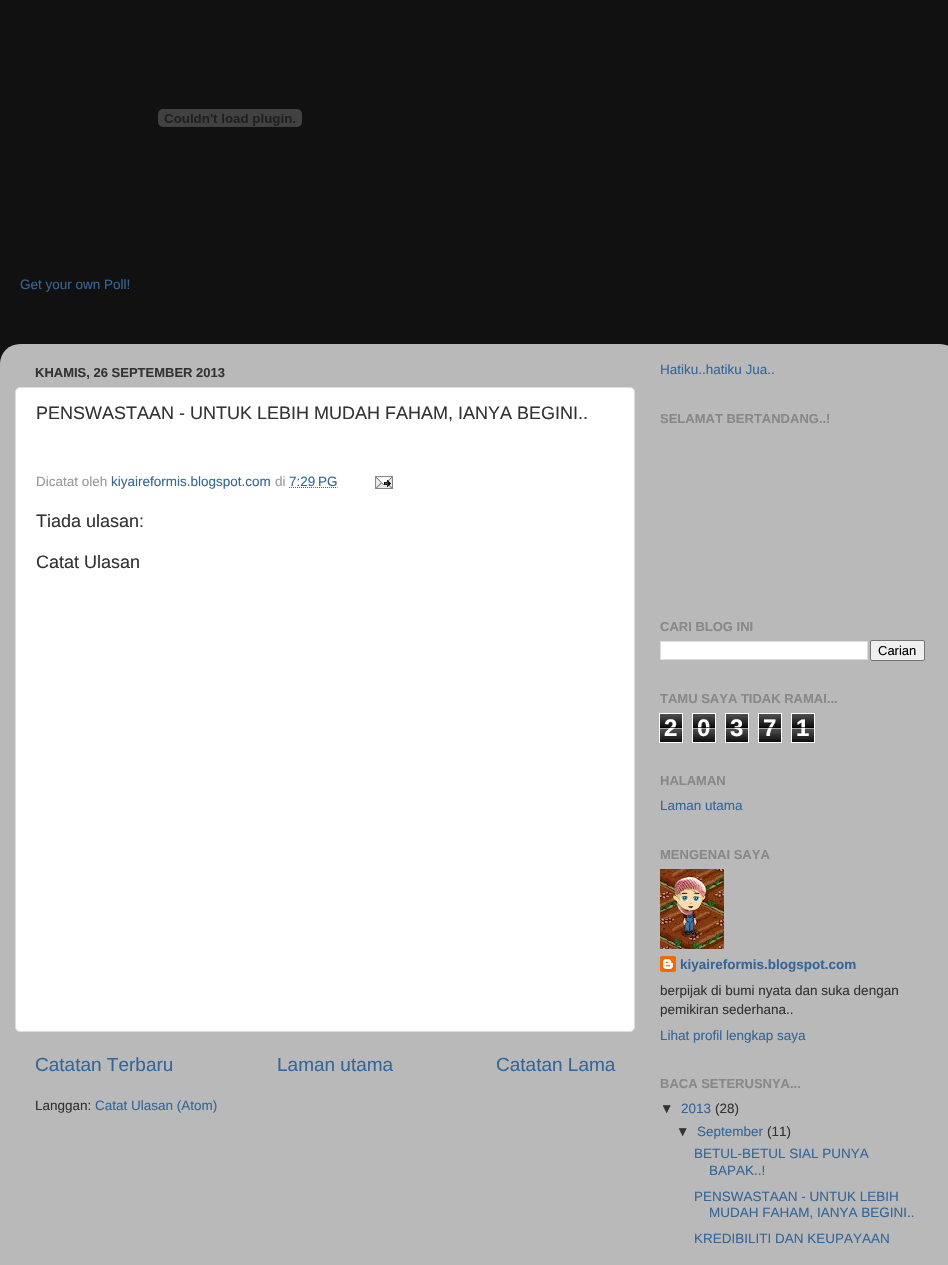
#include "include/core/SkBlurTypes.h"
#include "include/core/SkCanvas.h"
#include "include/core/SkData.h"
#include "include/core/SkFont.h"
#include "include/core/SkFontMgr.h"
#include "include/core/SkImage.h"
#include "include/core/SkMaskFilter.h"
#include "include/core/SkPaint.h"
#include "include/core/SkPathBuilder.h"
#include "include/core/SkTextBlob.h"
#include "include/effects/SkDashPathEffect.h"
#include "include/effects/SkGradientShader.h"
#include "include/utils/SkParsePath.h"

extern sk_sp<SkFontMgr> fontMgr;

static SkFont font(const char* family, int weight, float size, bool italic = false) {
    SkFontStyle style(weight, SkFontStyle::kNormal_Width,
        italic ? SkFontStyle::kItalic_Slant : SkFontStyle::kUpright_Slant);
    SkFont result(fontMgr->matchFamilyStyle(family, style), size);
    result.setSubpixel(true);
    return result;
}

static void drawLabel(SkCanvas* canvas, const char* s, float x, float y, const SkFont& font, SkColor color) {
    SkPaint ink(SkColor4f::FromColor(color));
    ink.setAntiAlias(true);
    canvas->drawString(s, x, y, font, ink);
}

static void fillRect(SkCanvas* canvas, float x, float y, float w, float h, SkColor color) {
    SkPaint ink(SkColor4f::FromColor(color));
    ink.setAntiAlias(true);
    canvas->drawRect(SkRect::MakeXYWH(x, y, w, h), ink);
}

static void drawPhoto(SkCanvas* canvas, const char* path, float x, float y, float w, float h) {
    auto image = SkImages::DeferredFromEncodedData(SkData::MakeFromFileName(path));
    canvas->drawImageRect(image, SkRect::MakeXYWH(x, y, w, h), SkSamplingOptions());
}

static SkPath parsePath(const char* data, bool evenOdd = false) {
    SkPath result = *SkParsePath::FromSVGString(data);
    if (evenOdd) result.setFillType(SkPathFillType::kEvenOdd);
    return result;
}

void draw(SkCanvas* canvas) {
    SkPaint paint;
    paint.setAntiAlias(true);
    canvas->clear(0xFF111111);
    drawPhoto(canvas, "assets/img1.png", 158, 109, 144, 18);
    SkFont font1 = font("Liberation Sans", 400, 13.5f);
    drawLabel(canvas, "Get your own Poll!", 20, 289, font1, 0xFF336699);
    drawPhoto(canvas, "assets/img2.png", 0, 344, 948, 921);
    SkFont font2 = font("Liberation Sans", 700, 13);
    drawLabel(canvas, "KHAMIS, 26 SEPTEMBER 2013", 35, 377, font2, 0xFF333333);
    paint.setColor(0xFFFFFFFF);
    canvas->drawRoundRect(SkRect::MakeXYWH(15.5f, 387.5f, 619, 644), 4.5f, 4.5f, paint);
    paint.setStroke(true);
    paint.setStrokeWidth(1);
    paint.setColor(0xFFDDDDDD);
    canvas->drawRoundRect(SkRect::MakeXYWH(15.5f, 387.5f, 619, 644), 4.5f, 4.5f, paint);
    SkFont font3 = font("Liberation Sans", 400, 18);
    drawLabel(canvas, "PENSWASTAAN - UNTUK LEBIH MUDAH FAHAM, IANYA BEGINI..", 36, 419, font3, 0xFF333333);
    drawLabel(canvas, "Dicatat oleh", 36, 486, font1, 0xFF999999);
    drawLabel(canvas, "kiyaireformis.blogspot.com", 111, 486, font1, 0xFF336699);
    drawLabel(canvas, "di", 275, 486, font1, 0xFF999999);
    drawLabel(canvas, "7:29 PG", 289, 486, font1, 0xFF336699);
    paint.setColor(0xFF336699);
    paint.setPathEffect(SkDashPathEffect::Make({{1, 1}}, 0));
    canvas->drawPath(parsePath("M289 487.5H337.5"), paint);
    paint.setPathEffect(nullptr);
    drawPhoto(canvas, "assets/img3.png", 375, 476, 18, 13);
    drawLabel(canvas, "Tiada ulasan:", 36, 527, font3, 0xFF333333);
    drawLabel(canvas, "Catat Ulasan", 36, 568, font3, 0xFF333333);
    SkFont font4 = font("Liberation Sans", 400, 19);
    drawLabel(canvas, "Catatan Terbaru", 35, 1071, font4, 0xFF336699);
    drawLabel(canvas, "Laman utama", 277, 1071, font4, 0xFF336699);
    drawLabel(canvas, "Catatan Lama", 496, 1071, font4, 0xFF336699);
    drawLabel(canvas, "Langgan:", 35, 1110, font1, 0xFF333333);
    drawLabel(canvas, "Catat Ulasan (Atom)", 95, 1110, font1, 0xFF336699);
    drawLabel(canvas, "Hatiku..hatiku Jua..", 660, 374, font1, 0xFF336699);
    drawLabel(canvas, "SELAMAT BERTANDANG..!", 660, 423, font2, 0xFF888888);
    drawLabel(canvas, "CARI BLOG INI", 660, 631, font2, 0xFF888888);
    paint.setStroke(false);
    paint.setColor(0xFFFFFFFF);
    canvas->drawRect(SkRect::MakeXYWH(660.5f, 641.5f, 207, 18), paint);
    paint.setStroke(true);
    paint.setColor(0xFFDDDDDD);
    canvas->drawRect(SkRect::MakeXYWH(660.5f, 641.5f, 207, 18), paint);
    paint.setStroke(false);
    paint.setColor(0xFFEFEFEF);
    canvas->drawRoundRect(SkRect::MakeXYWH(870.5f, 640.5f, 54, 20), 1.5f, 1.5f, paint);
    paint.setStroke(true);
    paint.setColor(0xFF767676);
    canvas->drawRoundRect(SkRect::MakeXYWH(870.5f, 640.5f, 54, 20), 1.5f, 1.5f, paint);
    SkFont font5 = font("Liberation Sans", 400, 13);
    drawLabel(canvas, "Carian", 878, 655, font5, 0xFF000000);
    drawLabel(canvas, "TAMU SAYA TIDAK RAMAI...", 660, 703, font2, 0xFF888888);
    drawPhoto(canvas, "assets/img4.png", 660, 714, 22, 28);
    paint.setColor(0xFFFFFFFF);
    canvas->drawRect(SkRect::MakeXYWH(659.5f, 713.5f, 23, 29), paint);
    SkFont font6 = font("Liberation Sans", 700, 24);
    drawLabel(canvas, "2", 664, 736, font6, 0xFFFFFFFF);
    fillRect(canvas, 660, 727, 22, 1, 0xA6000000);
    fillRect(canvas, 660, 728, 22, 1, 0xA6FFFFFF);
    drawPhoto(canvas, "assets/img4.png", 693, 714, 22, 28);
    canvas->drawRect(SkRect::MakeXYWH(692.5f, 713.5f, 23, 29), paint);
    drawLabel(canvas, "0", 697, 736, font6, 0xFFFFFFFF);
    fillRect(canvas, 693, 727, 22, 1, 0xA6000000);
    fillRect(canvas, 693, 728, 22, 1, 0xA6FFFFFF);
    drawPhoto(canvas, "assets/img4.png", 726, 714, 22, 28);
    canvas->drawRect(SkRect::MakeXYWH(725.5f, 713.5f, 23, 29), paint);
    drawLabel(canvas, "3", 730, 736, font6, 0xFFFFFFFF);
    fillRect(canvas, 726, 727, 22, 1, 0xA6000000);
    fillRect(canvas, 726, 728, 22, 1, 0xA6FFFFFF);
    drawPhoto(canvas, "assets/img4.png", 759, 714, 22, 28);
    canvas->drawRect(SkRect::MakeXYWH(758.5f, 713.5f, 23, 29), paint);
    drawLabel(canvas, "7", 763, 736, font6, 0xFFFFFFFF);
    fillRect(canvas, 759, 727, 22, 1, 0xA6000000);
    fillRect(canvas, 759, 728, 22, 1, 0xA6FFFFFF);
    drawPhoto(canvas, "assets/img4.png", 792, 714, 22, 28);
    canvas->drawRect(SkRect::MakeXYWH(791.5f, 713.5f, 23, 29), paint);
    drawLabel(canvas, "1", 796, 736, font6, 0xFFFFFFFF);
    fillRect(canvas, 792, 727, 22, 1, 0xA6000000);
    fillRect(canvas, 792, 728, 22, 1, 0xA6FFFFFF);
    drawLabel(canvas, "HALAMAN", 660, 785, font2, 0xFF888888);
    drawLabel(canvas, "Laman utama", 660, 810, font1, 0xFF336699);
    drawLabel(canvas, "MENGENAI SAYA", 660, 859, font2, 0xFF888888);
    drawPhoto(canvas, "assets/img5.png", 660, 869, 64, 80);
    drawPhoto(canvas, "assets/img6.png", 660, 956, 16, 16);
    SkFont font7 = font("Liberation Sans", 700, 13.5f);
    drawLabel(canvas, "kiyaireformis.blogspot.com", 680, 969, font7, 0xFF336699);
    drawLabel(canvas, "berpijak di bumi nyata dan suka dengan", 660, 995, font1, 0xFF333333);
    drawLabel(canvas, "pemikiran sederhana..", 660, 1014, font1, 0xFF333333);
    drawLabel(canvas, "Lihat profil lengkap saya", 660, 1040, font1, 0xFF336699);
    drawLabel(canvas, "BACA SETERUSNYA...", 660, 1088, font2, 0xFF888888);
    drawLabel(canvas, "▼", 660, 1113, font1, 0xFF333333);
    drawLabel(canvas, "2013", 681, 1113, font1, 0xFF336699);
    drawLabel(canvas, "(28)", 715, 1113, font1, 0xFF333333);
    drawLabel(canvas, "▼", 676, 1136, font1, 0xFF333333);
    drawLabel(canvas, "September", 697, 1136, font1, 0xFF336699);
    drawLabel(canvas, "(11)", 767, 1136, font1, 0xFF333333);
    drawLabel(canvas, "BETUL-BETUL SIAL PUNYA", 694, 1158, font1, 0xFF336699);
    drawLabel(canvas, "BAPAK..!", 709, 1175, font1, 0xFF336699);
    drawLabel(canvas, "PENSWASTAAN - UNTUK LEBIH", 694, 1201, font1, 0xFF336699);
    drawLabel(canvas, "MUDAH FAHAM, IANYA BEGINI..", 709, 1217, font1, 0xFF336699);
    drawLabel(canvas, "KREDIBILITI DAN KEUPAYAAN", 694, 1243, font1, 0xFF336699);
}
